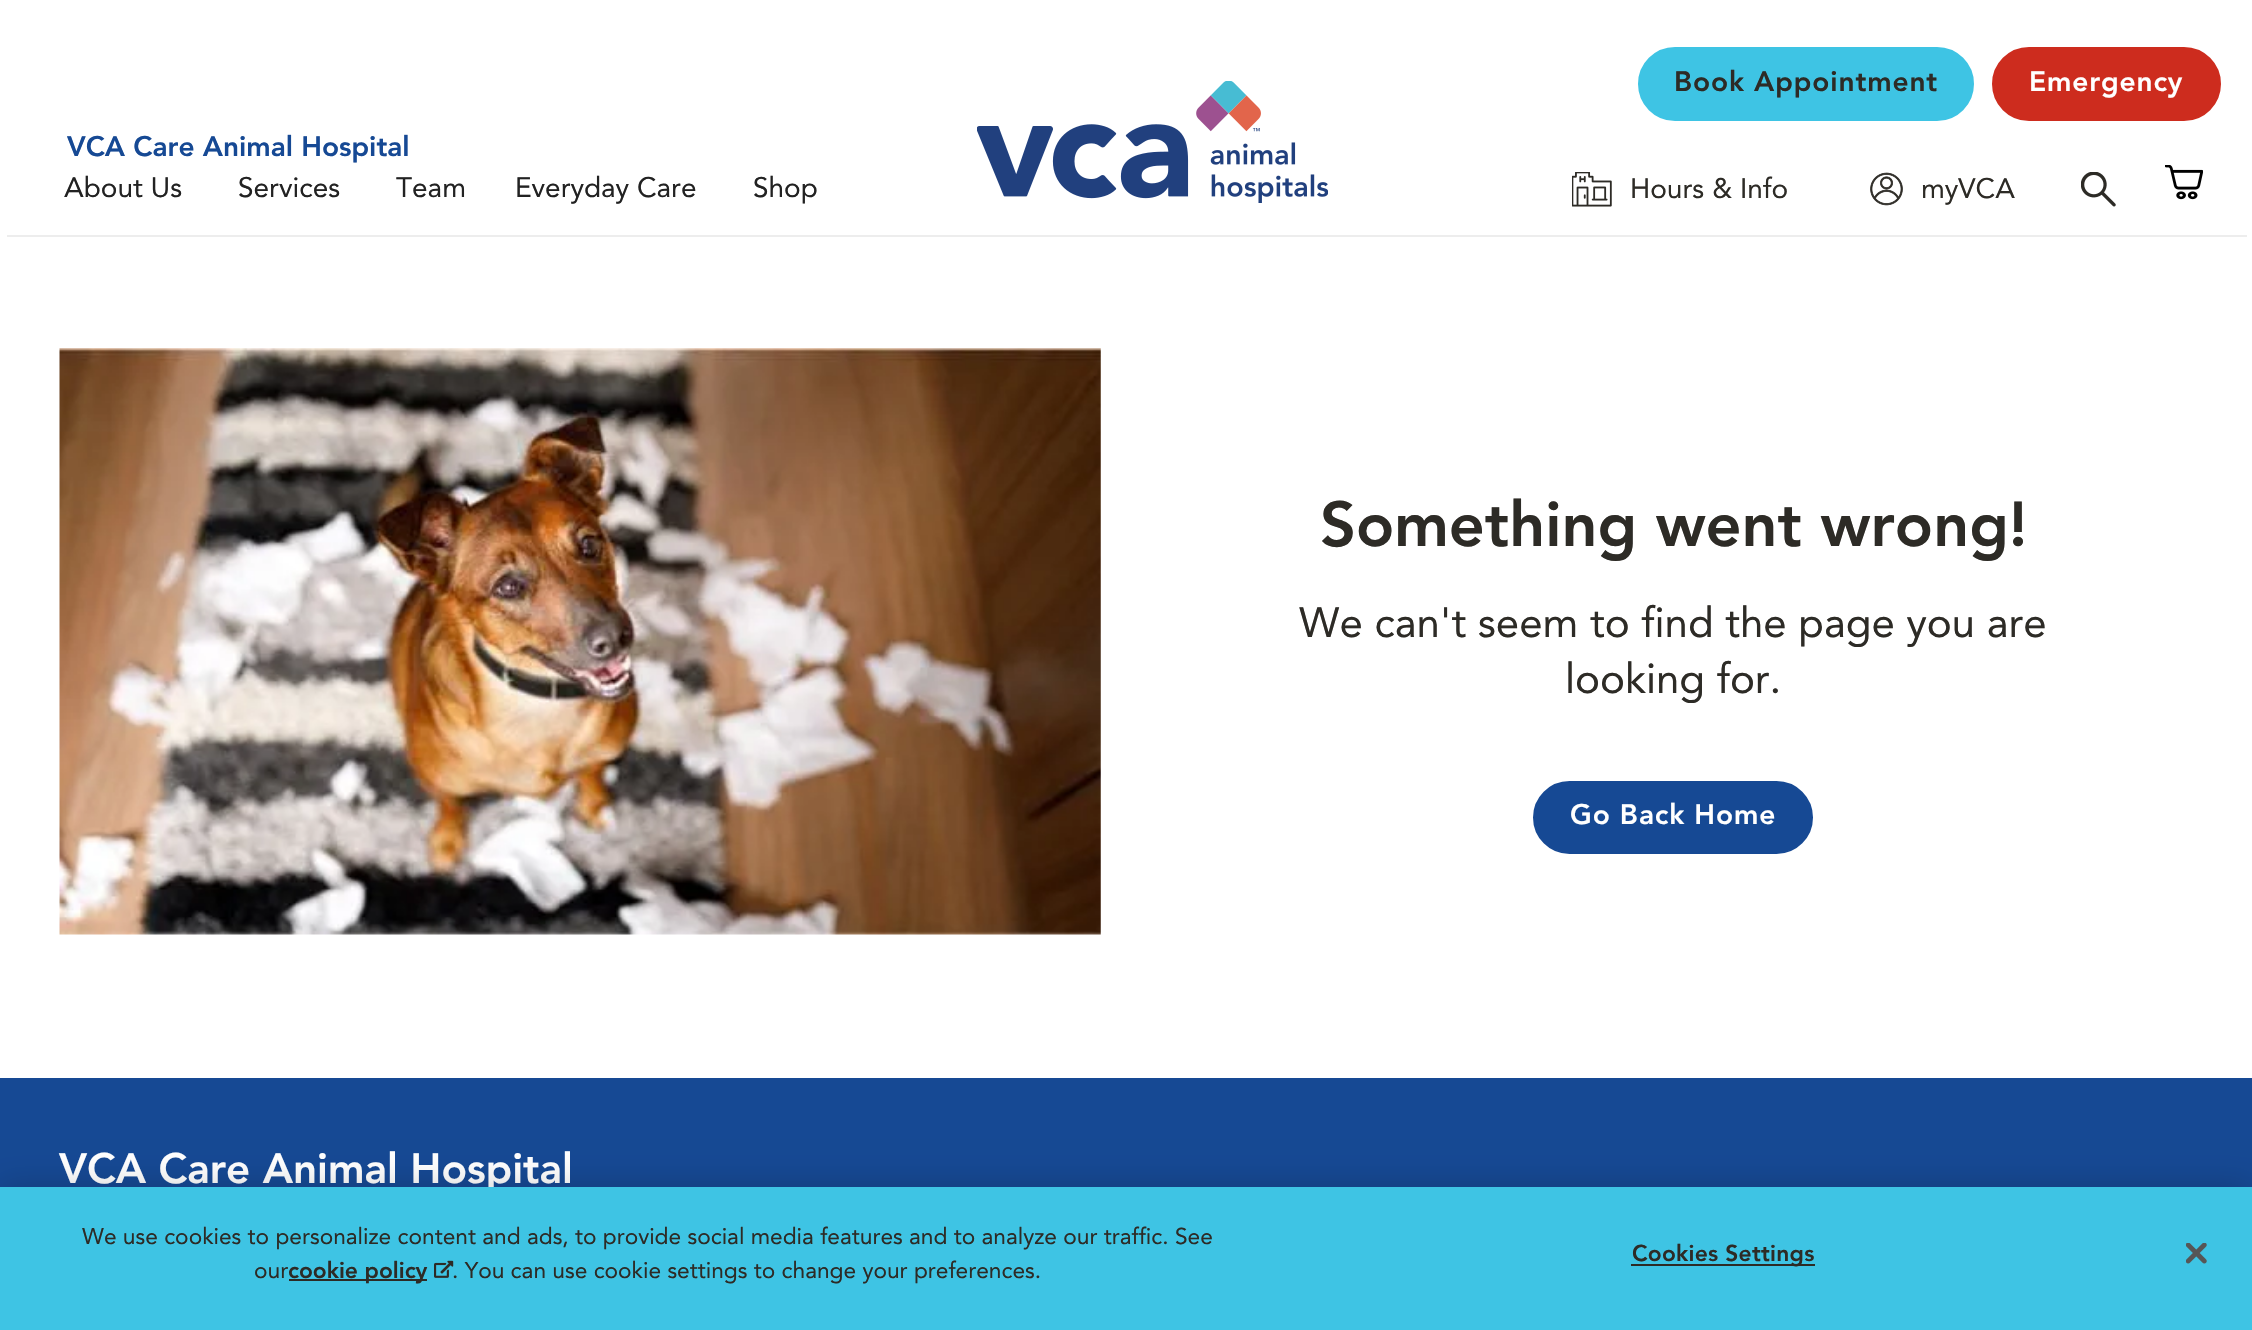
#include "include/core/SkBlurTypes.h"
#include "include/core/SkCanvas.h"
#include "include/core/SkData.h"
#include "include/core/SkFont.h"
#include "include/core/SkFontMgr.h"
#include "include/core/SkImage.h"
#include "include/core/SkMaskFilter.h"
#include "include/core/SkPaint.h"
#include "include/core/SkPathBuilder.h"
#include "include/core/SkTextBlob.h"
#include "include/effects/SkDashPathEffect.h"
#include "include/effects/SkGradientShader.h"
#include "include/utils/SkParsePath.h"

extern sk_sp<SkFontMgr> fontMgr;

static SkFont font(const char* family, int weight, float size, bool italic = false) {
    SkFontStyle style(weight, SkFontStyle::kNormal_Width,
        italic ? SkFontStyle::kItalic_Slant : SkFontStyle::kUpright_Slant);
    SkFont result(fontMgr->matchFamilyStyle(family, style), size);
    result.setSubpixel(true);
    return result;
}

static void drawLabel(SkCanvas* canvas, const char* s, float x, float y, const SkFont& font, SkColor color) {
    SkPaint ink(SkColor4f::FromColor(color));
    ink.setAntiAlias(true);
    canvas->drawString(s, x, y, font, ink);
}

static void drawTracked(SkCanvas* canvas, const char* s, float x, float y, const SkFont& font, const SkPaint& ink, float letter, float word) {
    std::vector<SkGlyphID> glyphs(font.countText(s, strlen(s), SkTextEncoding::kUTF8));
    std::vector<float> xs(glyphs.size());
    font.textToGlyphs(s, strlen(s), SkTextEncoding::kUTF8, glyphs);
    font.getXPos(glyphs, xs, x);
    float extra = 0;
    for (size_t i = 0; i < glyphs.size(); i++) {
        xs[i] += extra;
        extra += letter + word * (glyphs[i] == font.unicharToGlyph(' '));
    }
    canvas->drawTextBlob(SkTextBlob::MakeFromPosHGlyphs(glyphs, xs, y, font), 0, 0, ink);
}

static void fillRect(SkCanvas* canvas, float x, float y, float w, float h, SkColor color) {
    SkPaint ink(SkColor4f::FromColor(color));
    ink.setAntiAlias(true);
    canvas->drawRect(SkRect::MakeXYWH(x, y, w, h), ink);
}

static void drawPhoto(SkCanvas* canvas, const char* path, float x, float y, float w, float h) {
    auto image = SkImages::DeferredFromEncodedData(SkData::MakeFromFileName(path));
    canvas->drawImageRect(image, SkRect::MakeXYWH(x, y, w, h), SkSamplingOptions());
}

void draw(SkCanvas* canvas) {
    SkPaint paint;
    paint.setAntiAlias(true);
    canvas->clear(0xFFFFFFFF);
    fillRect(canvas, 7, 235, 2240, 2, 0xFFEDEDED);
    SkFont font1 = font("Avenir", 900, 28);
    drawLabel(canvas, "VCA Care Animal Hospital", 67, 156, font1, 0xFF164994);
    SkFont font2 = font("Avenir", 400, 28);
    drawLabel(canvas, "About Us", 64, 197, font2, 0xFF222222);
    drawLabel(canvas, "Services", 238, 197, font2, 0xFF222222);
    drawLabel(canvas, "Team", 396, 197, font2, 0xFF222222);
    drawLabel(canvas, "Everyday Care", 515, 197, font2, 0xFF222222);
    drawLabel(canvas, "Shop", 753, 197, font2, 0xFF222222);
    drawPhoto(canvas, "assets/img1.png", 977, 81, 351, 122);
    paint.setColor(0xFF3EC4E4);
    canvas->drawRoundRect(SkRect::MakeXYWH(1639, 48, 334, 72), 36, 36, paint);
    paint.setStroke(true);
    paint.setStrokeWidth(2);
    canvas->drawRoundRect(SkRect::MakeXYWH(1639, 48, 334, 72), 36, 36, paint);
    paint.setStroke(false);
    paint.setColor(0xFF2D2B26);
    drawTracked(canvas, "Book Appointment", 1674, 91, font1, paint, 0.9f, 0);
    paint.setColor(0xFFCD2C1E);
    canvas->drawRoundRect(SkRect::MakeXYWH(1993, 48, 227, 72), 36, 36, paint);
    paint.setStroke(true);
    canvas->drawRoundRect(SkRect::MakeXYWH(1993, 48, 227, 72), 36, 36, paint);
    paint.setStroke(false);
    paint.setColor(0xFFFFFFFF);
    drawTracked(canvas, "Emergency", 2029, 91, font1, paint, 0.9f, 0);
    drawPhoto(canvas, "assets/img2.png", 1572, 172, 40, 35);
    drawLabel(canvas, "Hours & Info", 1630, 198, font2, 0xFF2D2B26);
    drawPhoto(canvas, "assets/img3.png", 1870, 172, 33, 34);
    drawLabel(canvas, "myVCA", 1921, 198, font2, 0xFF2D2B26);
    drawPhoto(canvas, "assets/img4.png", 2081, 172, 35, 35);
    drawPhoto(canvas, "assets/img5.png", 2165, 165, 38, 35);
    drawPhoto(canvas, "assets/img6.png", 59, 348, 1042, 587);
    SkFont font3 = font("Avenir", 900, 62.75f);
    drawLabel(canvas, "Something went wrong!", 1320, 546, font3, 0xFF2D2B26);
    SkFont font4 = font("Avenir", 400, 42);
    drawLabel(canvas, "We can't seem to find the page you are", 1299, 637, font4, 0xFF2D2B26);
    drawLabel(canvas, "looking for.", 1565, 693, font4, 0xFF2D2B26);
    paint.setColor(0xFF164994);
    canvas->drawRoundRect(SkRect::MakeXYWH(1534, 782, 278, 71), 35.5f, 35.5f, paint);
    paint.setStroke(true);
    canvas->drawRoundRect(SkRect::MakeXYWH(1534, 782, 278, 71), 35.5f, 35.5f, paint);
    paint.setStroke(false);
    paint.setColor(0xFFFFFFFF);
    drawTracked(canvas, "Go Back Home", 1570, 824, font1, paint, 0.9f, 0);
    fillRect(canvas, 0, 1078, 2252, 109, 0xFF164994);
    SkFont font5 = font("Avenir", 900, 42);
    drawLabel(canvas, "VCA Care Animal Hospital", 59, 1183, font5, 0xFFFFFFFF);
    paint.setColor(0x33000000);
    paint.setMaskFilter(SkMaskFilter::MakeBlur(kNormal_SkBlurStyle, 16));
    canvas->drawRect(SkRect::MakeXYWH(0, 1187, 2252, 143), paint);
    paint.setMaskFilter(nullptr);
    fillRect(canvas, 0, 1187, 2252, 143, 0xFF3EC4E4);
    SkFont font6 = font("Avenir", 400, 22.75f);
    drawLabel(canvas, "We use cookies to personalize content and ads, to provide social media features and to analyze our traffic. See", 82, 1244, font6, 0xFF2D2B26);
    drawLabel(canvas, "our", 254, 1278, font6, 0xFF2D2B26);
    fillRect(canvas, 289, 1279, 138, 2, 0xFF2D2B26);
    SkFont font7 = font("Avenir", 900, 22.75f);
    drawLabel(canvas, "cookie policy", 288, 1278, font7, 0xFF2D2B26);
    drawPhoto(canvas, "assets/img7.png", 434, 1260, 20, 18);
    drawLabel(canvas, ". You can use cookie settings to change your preferences.", 452, 1278, font6, 0xFF2D2B26);
    fillRect(canvas, 1631, 1264, 184, 2, 0xFF2D2B26);
    paint.setColor(0xFF2D2B26);
    drawTracked(canvas, "Cookies Settings", 1632, 1261, font7, paint, 0.25f, 0);
    drawPhoto(canvas, "assets/img8.png", 2186, 1243, 21, 21);
}
